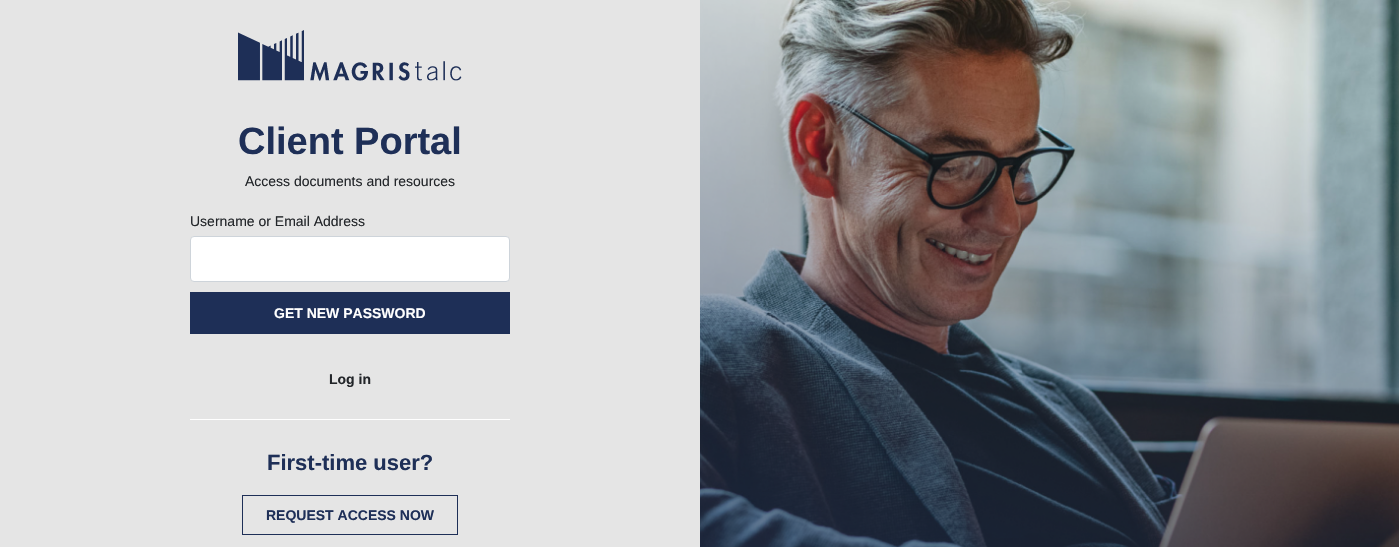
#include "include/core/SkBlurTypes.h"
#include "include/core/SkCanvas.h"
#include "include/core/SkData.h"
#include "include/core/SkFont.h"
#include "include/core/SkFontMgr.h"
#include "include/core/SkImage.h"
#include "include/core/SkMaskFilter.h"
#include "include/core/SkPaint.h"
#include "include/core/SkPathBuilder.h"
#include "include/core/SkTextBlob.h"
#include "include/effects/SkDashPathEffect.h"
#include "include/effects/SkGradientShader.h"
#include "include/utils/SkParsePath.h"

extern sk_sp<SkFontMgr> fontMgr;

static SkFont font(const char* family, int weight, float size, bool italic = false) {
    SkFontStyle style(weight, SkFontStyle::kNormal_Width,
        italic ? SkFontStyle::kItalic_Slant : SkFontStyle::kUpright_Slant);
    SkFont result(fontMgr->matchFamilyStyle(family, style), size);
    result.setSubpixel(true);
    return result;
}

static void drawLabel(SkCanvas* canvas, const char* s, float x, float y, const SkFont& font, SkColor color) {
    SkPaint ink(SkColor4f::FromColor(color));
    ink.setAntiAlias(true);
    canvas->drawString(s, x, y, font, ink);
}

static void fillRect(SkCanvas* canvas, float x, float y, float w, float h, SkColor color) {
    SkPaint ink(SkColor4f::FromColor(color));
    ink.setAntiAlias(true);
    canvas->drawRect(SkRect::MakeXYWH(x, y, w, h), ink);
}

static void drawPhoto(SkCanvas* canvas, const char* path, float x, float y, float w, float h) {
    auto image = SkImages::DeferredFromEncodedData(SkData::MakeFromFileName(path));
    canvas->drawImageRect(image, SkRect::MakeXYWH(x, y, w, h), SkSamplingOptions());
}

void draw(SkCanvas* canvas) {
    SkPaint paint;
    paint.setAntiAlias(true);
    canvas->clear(0xFFE5E5E5);
    drawPhoto(canvas, "assets/img1.png", 238, 30, 224, 51);
    SkFont font1 = font("Liberation Sans", 700, 38);
    drawLabel(canvas, "Client Portal", 238, 154, font1, 0xFF1E2F57);
    SkFont font2 = font("Liberation Sans", 400, 14);
    drawLabel(canvas, "Access documents and resources", 245, 186, font2, 0xFF222529);
    drawLabel(canvas, "Username or Email Address", 190, 226, font2, 0xFF222529);
    paint.setColor(0xFFFFFFFF);
    canvas->drawRoundRect(SkRect::MakeXYWH(190.5f, 236.5f, 319, 45), 3.5f, 3.5f, paint);
    paint.setStroke(true);
    paint.setStrokeWidth(1);
    paint.setColor(0xFFCED4DA);
    canvas->drawRoundRect(SkRect::MakeXYWH(190.5f, 236.5f, 319, 45), 3.5f, 3.5f, paint);
    fillRect(canvas, 190, 292, 320, 42, 0xFF1E2F57);
    SkFont font3 = font("Liberation Sans", 700, 14);
    drawLabel(canvas, "GET NEW PASSWORD", 274, 318, font3, 0xFFFFFFFF);
    drawLabel(canvas, "Log in", 329, 384, font3, 0xFF222529);
    fillRect(canvas, 190, 419, 320, 1, 0xFFFFFFFF);
    SkFont font4 = font("Liberation Sans", 700, 22);
    drawLabel(canvas, "First-time user?", 267, 470, font4, 0xFF1E2F57);
    paint.setColor(0xFF1E2F57);
    canvas->drawRect(SkRect::MakeXYWH(242.5f, 495.5f, 215, 39), paint);
    drawLabel(canvas, "REQUEST ACCESS NOW", 266, 520, font3, 0xFF1E2F57);
    drawPhoto(canvas, "assets/img2.png", 700, 0, 699, 547);
}
